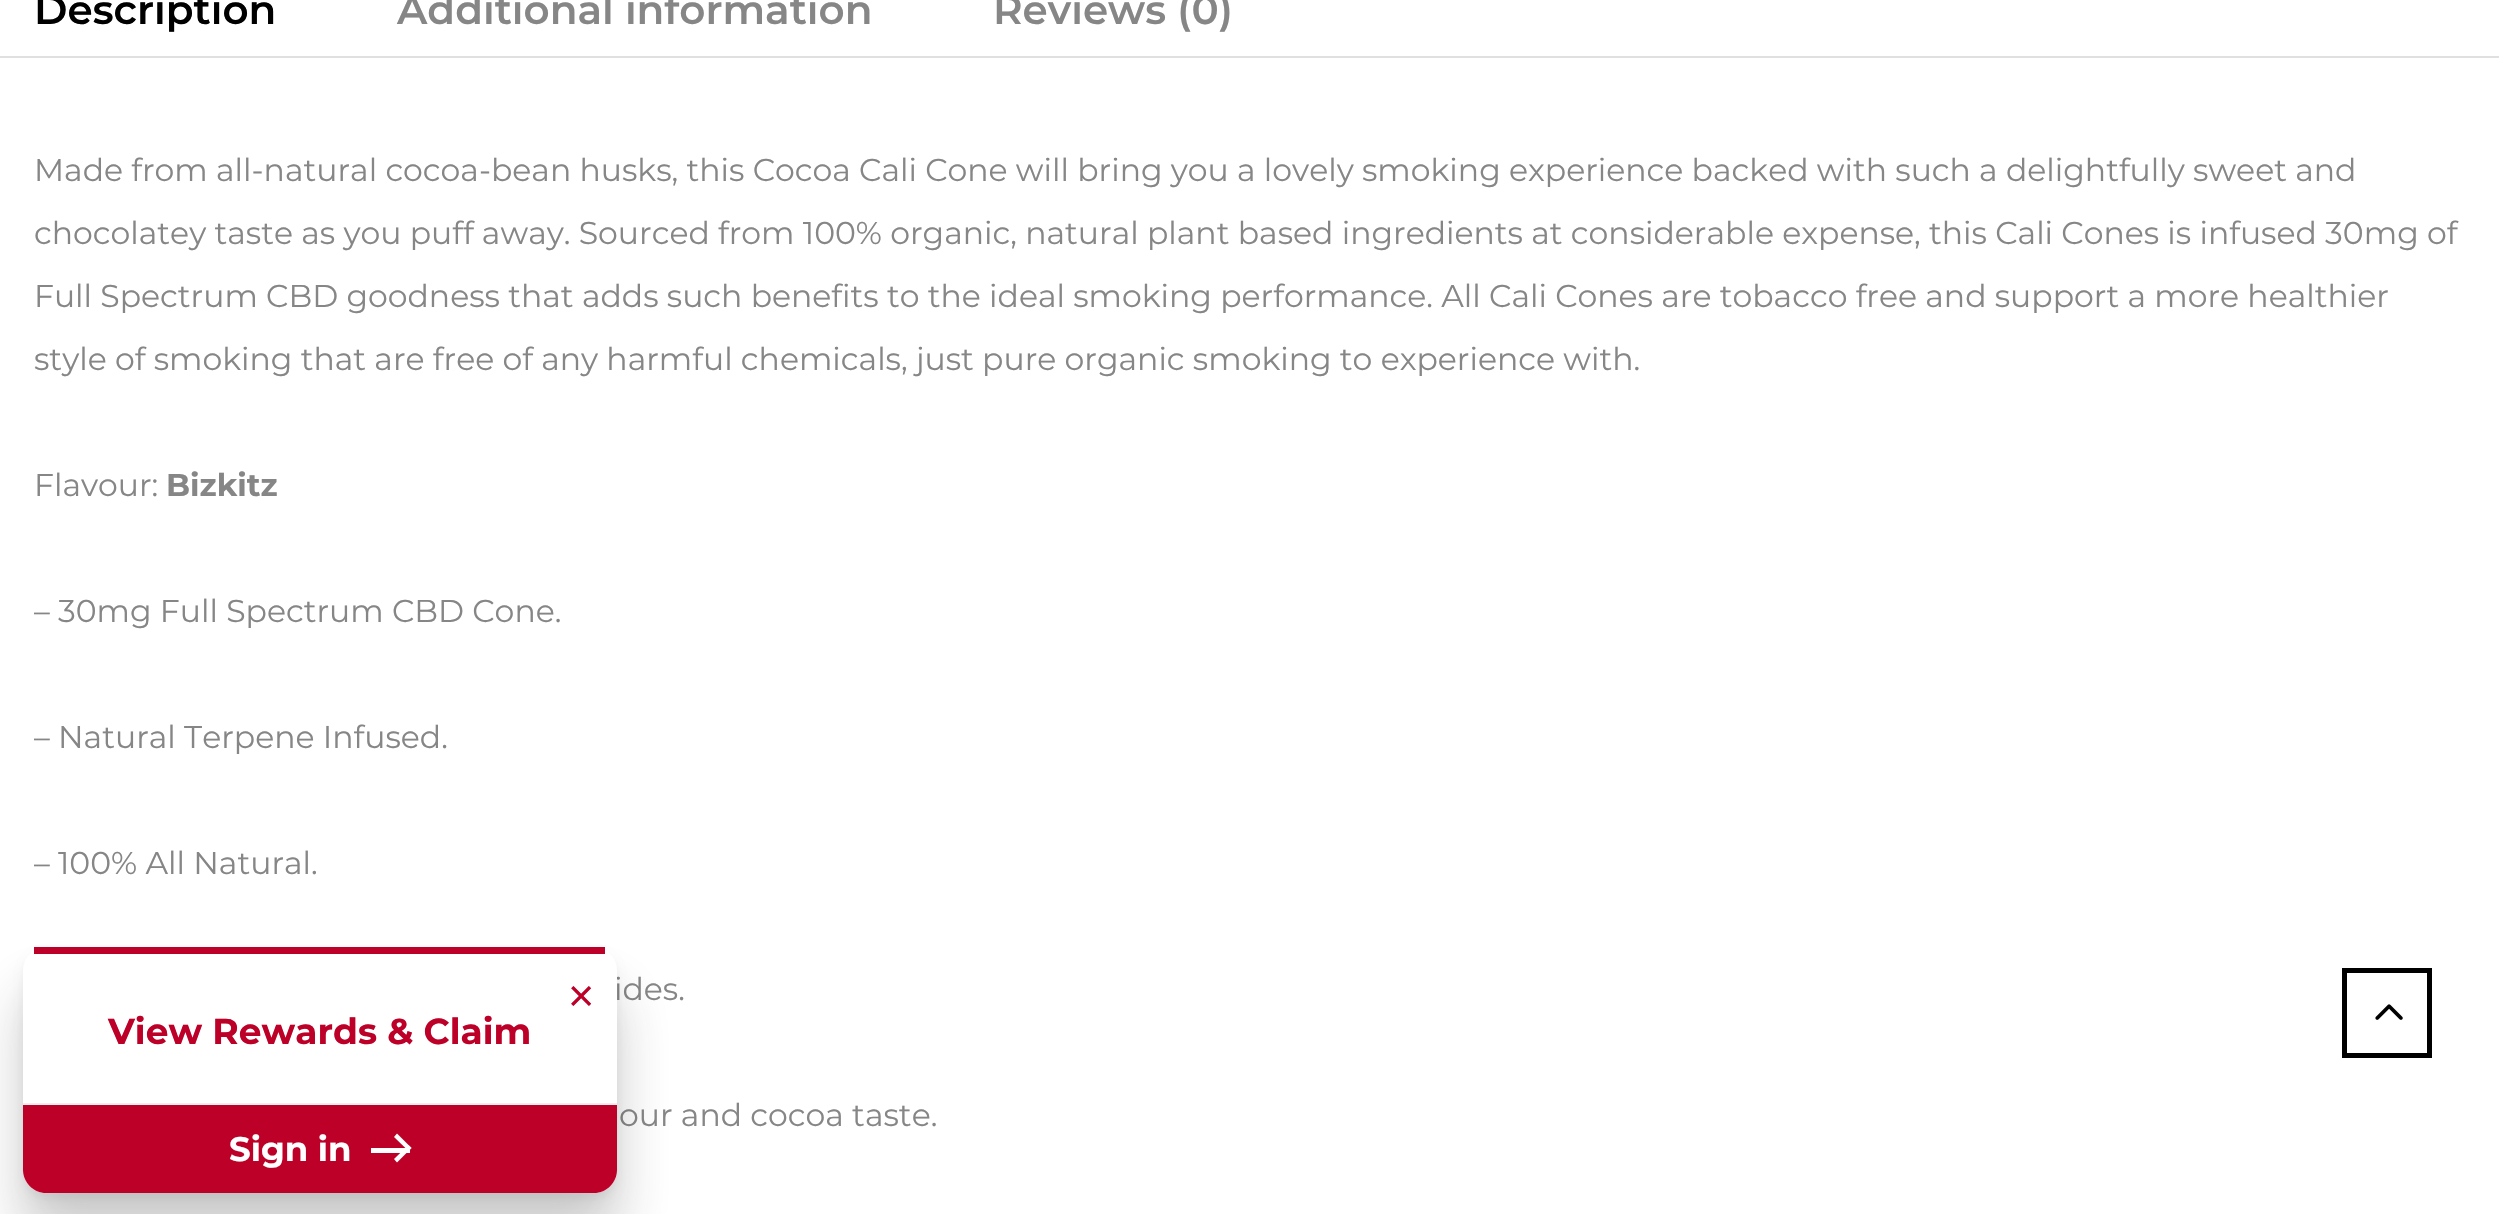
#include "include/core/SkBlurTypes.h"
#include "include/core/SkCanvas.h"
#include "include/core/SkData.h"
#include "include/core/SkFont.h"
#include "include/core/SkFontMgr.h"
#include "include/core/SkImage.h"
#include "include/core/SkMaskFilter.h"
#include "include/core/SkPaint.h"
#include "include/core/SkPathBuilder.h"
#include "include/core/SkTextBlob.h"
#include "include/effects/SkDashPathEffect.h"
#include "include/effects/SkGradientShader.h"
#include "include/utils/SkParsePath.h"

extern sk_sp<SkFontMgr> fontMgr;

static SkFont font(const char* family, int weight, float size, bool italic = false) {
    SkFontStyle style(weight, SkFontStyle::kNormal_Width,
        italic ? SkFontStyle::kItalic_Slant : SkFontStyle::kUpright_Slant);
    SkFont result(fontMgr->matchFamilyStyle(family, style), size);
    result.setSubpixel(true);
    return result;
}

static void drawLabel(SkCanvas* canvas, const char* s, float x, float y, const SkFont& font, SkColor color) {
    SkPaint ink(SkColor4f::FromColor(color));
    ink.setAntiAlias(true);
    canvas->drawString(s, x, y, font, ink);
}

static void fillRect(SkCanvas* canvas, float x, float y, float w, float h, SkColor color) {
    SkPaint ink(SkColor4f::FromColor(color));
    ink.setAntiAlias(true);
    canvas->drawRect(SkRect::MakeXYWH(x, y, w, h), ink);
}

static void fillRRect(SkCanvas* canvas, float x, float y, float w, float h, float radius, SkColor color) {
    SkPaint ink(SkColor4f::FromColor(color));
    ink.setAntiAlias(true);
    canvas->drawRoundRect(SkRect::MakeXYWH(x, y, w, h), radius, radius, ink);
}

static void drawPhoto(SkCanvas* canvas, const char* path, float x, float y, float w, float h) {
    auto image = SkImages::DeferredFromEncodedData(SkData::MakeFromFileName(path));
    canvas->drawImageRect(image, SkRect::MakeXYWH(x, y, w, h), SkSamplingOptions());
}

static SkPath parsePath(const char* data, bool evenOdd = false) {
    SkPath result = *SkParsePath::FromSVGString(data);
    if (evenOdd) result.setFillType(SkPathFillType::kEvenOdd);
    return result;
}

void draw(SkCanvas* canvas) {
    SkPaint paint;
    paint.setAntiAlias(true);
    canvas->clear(0xFFFFFFFF);
    fillRect(canvas, 0, 56, 2499, 2, 0xFFE0E0E0);
    SkFont font1 = font("Montserrat", 600, 40.5f);
    drawLabel(canvas, "Description", 34, 24, font1, 0xFF000000);
    drawLabel(canvas, "Additional information", 397, 24, font1, 0xFF868686);
    drawLabel(canvas, "Reviews (0)", 993, 24, font1, 0xFF868686);
    SkFont font2 = font("Montserrat", 400, 31.5f);
    drawLabel(canvas, "Made from all-natural cocoa-bean husks, this Cocoa Cali Cone will bring you a lovely smoking experience backed with such a delightfully sweet and", 34, 181, font2, 0xFF868686);
    drawLabel(canvas, "chocolatey taste as you puff away. Sourced from 100% organic, natural plant based ingredients at considerable expense, this Cali Cones is infused 30mg of", 34, 244, font2, 0xFF868686);
    drawLabel(canvas, "Full Spectrum CBD goodness that adds such benefits to the ideal smoking performance. All Cali Cones are tobacco free and support a more healthier", 34, 307, font2, 0xFF868686);
    drawLabel(canvas, "style of smoking that are free of any harmful chemicals, just pure organic smoking to experience with.", 34, 370, font2, 0xFF868686);
    drawLabel(canvas, "Flavour:", 34, 496, font2, 0xFF868686);
    SkFont font3 = font("Montserrat", 700, 31.5f);
    drawLabel(canvas, "Bizkitz", 166, 496, font3, 0xFF868686);
    drawLabel(canvas, "– 30mg Full Spectrum CBD Cone.", 34, 622, font2, 0xFF868686);
    drawLabel(canvas, "– Natural Terpene Infused.", 34, 748, font2, 0xFF868686);
    drawLabel(canvas, "– 100% All Natural.", 34, 874, font2, 0xFF868686);
    drawLabel(canvas, "ides.", 614, 1000, font2, 0xFF868686);
    drawLabel(canvas, "our and cocoa taste.", 619, 1126, font2, 0xFF868686);
    paint.setColor(0x0F000000);
    paint.setMaskFilter(SkMaskFilter::MakeBlur(kNormal_SkBlurStyle, 4.5f));
    canvas->drawRoundRect(SkRect::MakeXYWH(23, 954, 594, 245), 23, 23, paint);
    paint.setMaskFilter(nullptr);
    paint.setColor(0x3D262626);
    paint.setMaskFilter(SkMaskFilter::MakeBlur(kNormal_SkBlurStyle, 27));
    canvas->drawRoundRect(SkRect::MakeXYWH(23, 992, 594, 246), 23, 23, paint);
    paint.setMaskFilter(nullptr);
    fillRRect(canvas, 23, 947, 594, 246, 23, 0xFFFFFFFF);
    fillRect(canvas, 34, 947, 571, 7, 0xFFBD0028);
    SkFont font4 = font("Liberation Sans", 400, 45);
    drawLabel(canvas, "×", 568, 1011, font4, 0xFFBD0028);
    SkFont font5 = font("Montserrat", 700, 36);
    drawLabel(canvas, "View Rewards & Claim", 108, 1044, font5, 0xFFBD0028);
    paint.setColor(0xFFBD0028);
    canvas->drawPath(parsePath("M23 1103H617V1170C617 1182.5 606.5 1193 594 1193H46C33.5 1193 23 1182.5 23 1170Z"), paint);
    fillRect(canvas, 23, 1103, 594, 2, 0xFFEEEEEE);
    SkFont font6 = font("Montserrat", 700, 34);
    drawLabel(canvas, "Sign in", 229, 1161, font6, 0xFFFFFFFF);
    fillRect(canvas, 371, 1148, 39, 5, 0xFFFFFFFF);
    paint.setColor(0xFFFFFFFF);
    canvas->drawPath(parsePath("M394 1137L397 1133.5L411.5 1148L408.5 1151Z"), paint);
    canvas->drawPath(parsePath("M394 1159L408.5 1145L411.5 1148L397 1162.5Z"), paint);
    paint.setStroke(true);
    paint.setStrokeWidth(5);
    paint.setColor(0xFF000000);
    canvas->drawRect(SkRect::MakeXYWH(2344.5f, 970.5f, 85, 85), paint);
    drawPhoto(canvas, "assets/img1.png", 2375, 1004, 28, 16);
}
